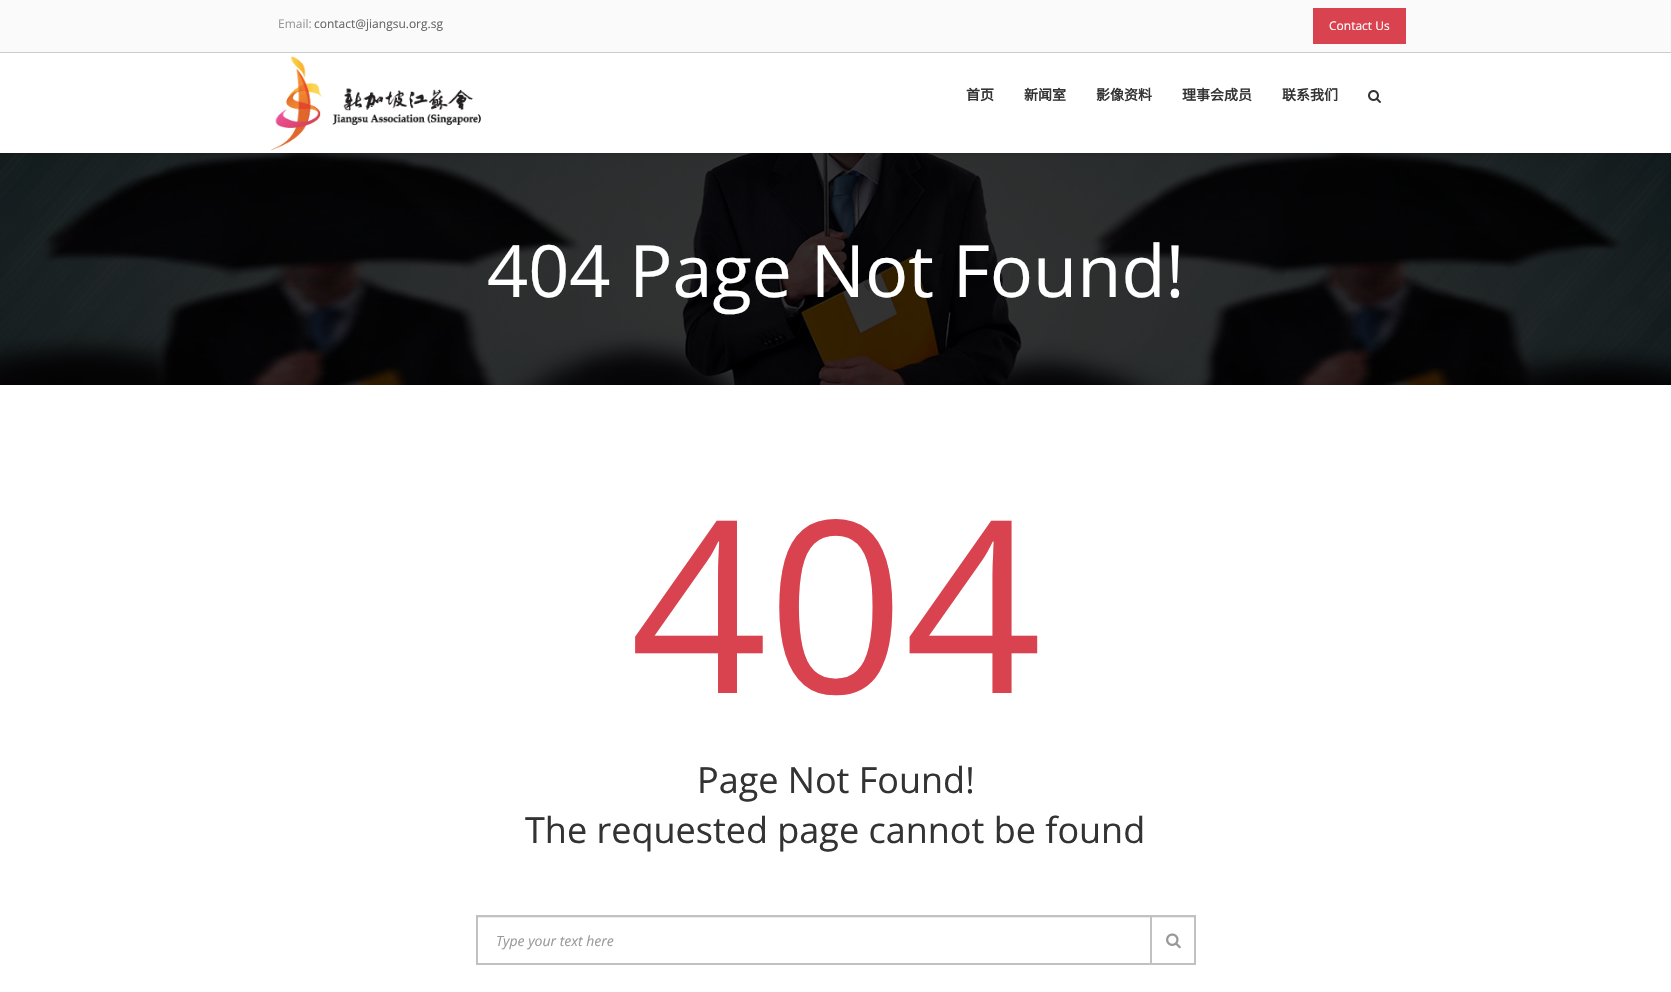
#include "include/core/SkBlurTypes.h"
#include "include/core/SkCanvas.h"
#include "include/core/SkData.h"
#include "include/core/SkFont.h"
#include "include/core/SkFontMgr.h"
#include "include/core/SkImage.h"
#include "include/core/SkMaskFilter.h"
#include "include/core/SkPaint.h"
#include "include/core/SkPathBuilder.h"
#include "include/core/SkTextBlob.h"
#include "include/effects/SkDashPathEffect.h"
#include "include/effects/SkGradientShader.h"
#include "include/utils/SkParsePath.h"

extern sk_sp<SkFontMgr> fontMgr;

static SkFont font(const char* family, int weight, float size, bool italic = false) {
    SkFontStyle style(weight, SkFontStyle::kNormal_Width,
        italic ? SkFontStyle::kItalic_Slant : SkFontStyle::kUpright_Slant);
    SkFont result(fontMgr->matchFamilyStyle(family, style), size);
    result.setSubpixel(true);
    return result;
}

static void drawLabel(SkCanvas* canvas, const char* s, float x, float y, const SkFont& font, SkColor color) {
    SkPaint ink(SkColor4f::FromColor(color));
    ink.setAntiAlias(true);
    canvas->drawString(s, x, y, font, ink);
}

static void fillRect(SkCanvas* canvas, float x, float y, float w, float h, SkColor color) {
    SkPaint ink(SkColor4f::FromColor(color));
    ink.setAntiAlias(true);
    canvas->drawRect(SkRect::MakeXYWH(x, y, w, h), ink);
}

static void drawPhoto(SkCanvas* canvas, const char* path, float x, float y, float w, float h) {
    auto image = SkImages::DeferredFromEncodedData(SkData::MakeFromFileName(path));
    canvas->drawImageRect(image, SkRect::MakeXYWH(x, y, w, h), SkSamplingOptions());
}

void draw(SkCanvas* canvas) {
    SkPaint paint;
    paint.setAntiAlias(true);
    canvas->clear(0xFFFFFFFF);
    fillRect(canvas, 0, 0, 1671, 52, 0xFFFAFAFA);
    fillRect(canvas, 0, 52, 1671, 1, 0xFFCCCCCC);
    SkFont font1 = font("Open Sans", 400, 12);
    drawLabel(canvas, "Email:", 278, 28, font1, 0xFF999999);
    drawLabel(canvas, "contact@jiangsu.org.sg", 314, 28, font1, 0xFF666666);
    fillRect(canvas, 1313, 8, 93, 36, 0xFFD94350);
    drawLabel(canvas, "Contact Us", 1329, 30, font1, 0xFFFFFFFF);
    drawPhoto(canvas, "assets/img1.png", 271, 56, 210, 95);
    SkFont font2 = font("Noto Sans CJK SC", 700, 14);
    drawLabel(canvas, "首页", 966, 100, font2, 0xFF333333);
    drawLabel(canvas, "新闻室", 1024, 100, font2, 0xFF333333);
    drawLabel(canvas, "影像资料", 1096, 100, font2, 0xFF333333);
    drawLabel(canvas, "理事会成员", 1182, 100, font2, 0xFF333333);
    drawLabel(canvas, "联系我们", 1282, 100, font2, 0xFF333333);
    drawPhoto(canvas, "assets/img2.png", 1368, 90, 13, 13);
    fillRect(canvas, 0, 153, 1671, 232, 0xFF000000);
    drawPhoto(canvas, "assets/img3.png", 0, 153, 1671, 232);
    SkFont font3 = font("Open Sans", 400, 72);
    drawLabel(canvas, "404 Page Not Found!", 487, 297, font3, 0xFFFFFFFF);
    SkFont font4 = font("Open Sans", 400, 240);
    drawLabel(canvas, "404", 630, 693, font4, 0xFFD94350);
    SkFont font5 = font("Open Sans", 400, 36);
    drawLabel(canvas, "Page Not Found!", 697, 793, font5, 0xFF333333);
    drawLabel(canvas, "The requested page cannot be found", 525, 843, font5, 0xFF333333);
    fillRect(canvas, 478, 917, 716, 1, 0xFFECECEC);
    paint.setStroke(true);
    paint.setStrokeWidth(2);
    paint.setColor(0xFFC1C1C1);
    canvas->drawRect(SkRect::MakeXYWH(477, 916, 718, 48), paint);
    SkFont font6 = font("Open Sans", 400, 14, true);
    drawLabel(canvas, "Type your text here", 496, 946, font6, 0xFF999999);
    fillRect(canvas, 1150, 915, 2, 50, 0xFFC1C1C1);
    drawPhoto(canvas, "assets/img4.png", 1166, 933, 15, 16);
}
